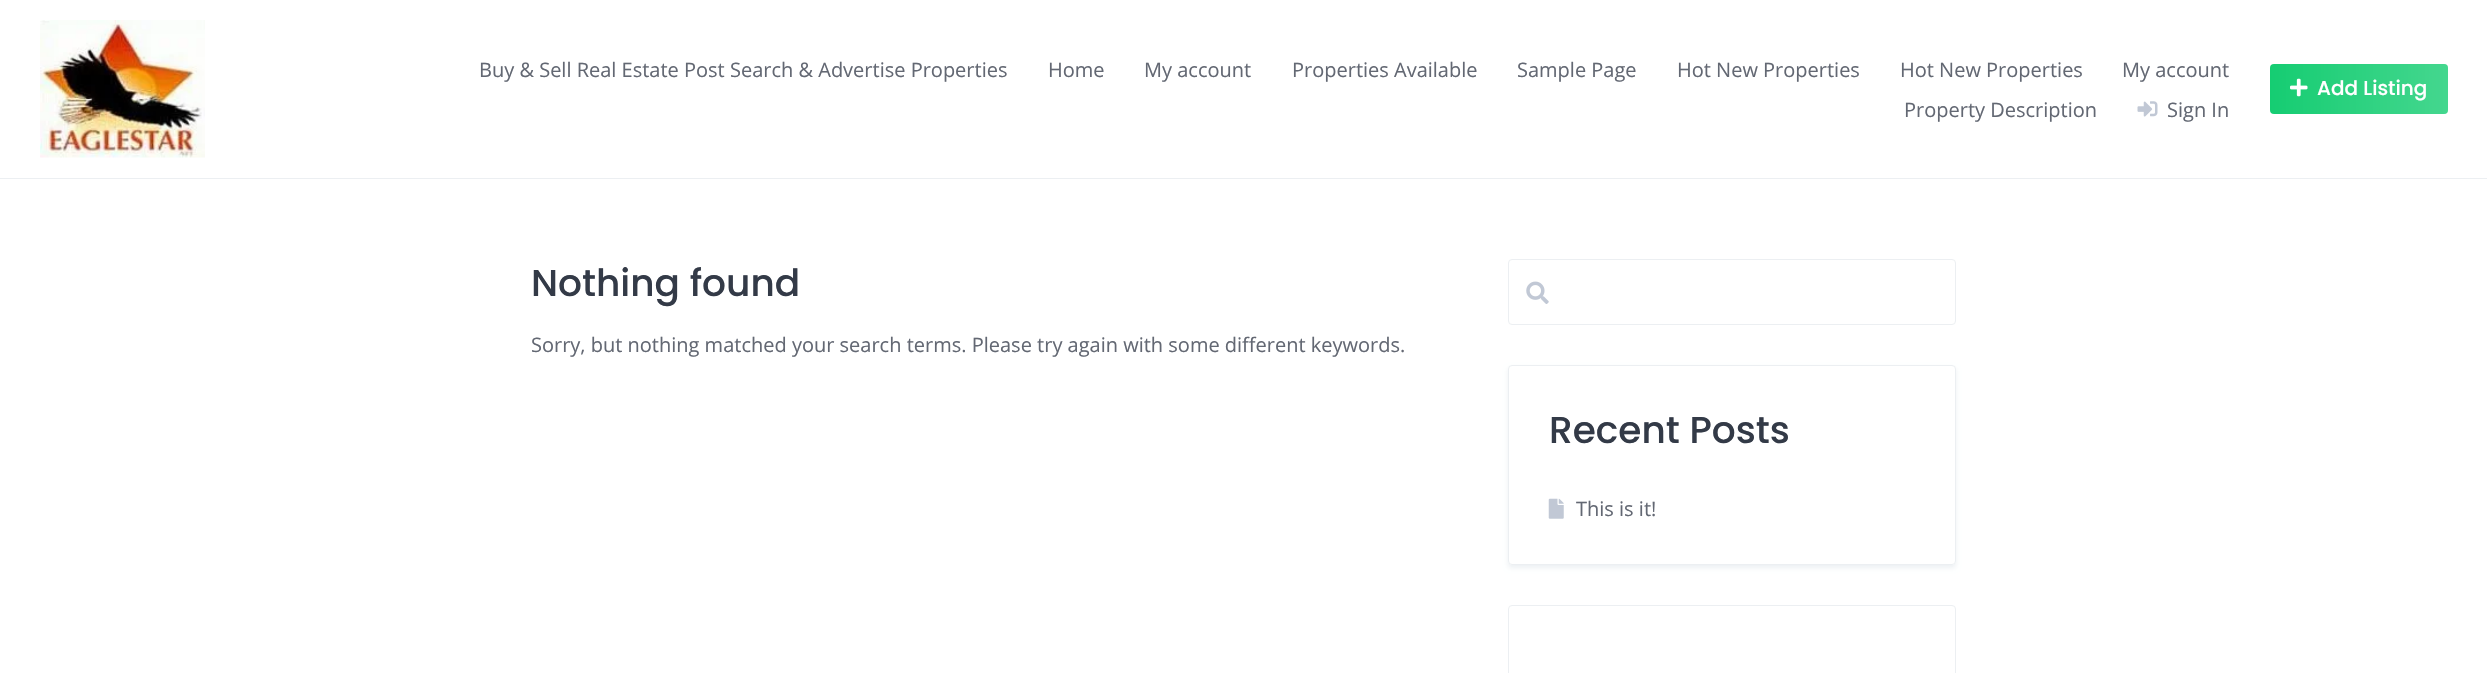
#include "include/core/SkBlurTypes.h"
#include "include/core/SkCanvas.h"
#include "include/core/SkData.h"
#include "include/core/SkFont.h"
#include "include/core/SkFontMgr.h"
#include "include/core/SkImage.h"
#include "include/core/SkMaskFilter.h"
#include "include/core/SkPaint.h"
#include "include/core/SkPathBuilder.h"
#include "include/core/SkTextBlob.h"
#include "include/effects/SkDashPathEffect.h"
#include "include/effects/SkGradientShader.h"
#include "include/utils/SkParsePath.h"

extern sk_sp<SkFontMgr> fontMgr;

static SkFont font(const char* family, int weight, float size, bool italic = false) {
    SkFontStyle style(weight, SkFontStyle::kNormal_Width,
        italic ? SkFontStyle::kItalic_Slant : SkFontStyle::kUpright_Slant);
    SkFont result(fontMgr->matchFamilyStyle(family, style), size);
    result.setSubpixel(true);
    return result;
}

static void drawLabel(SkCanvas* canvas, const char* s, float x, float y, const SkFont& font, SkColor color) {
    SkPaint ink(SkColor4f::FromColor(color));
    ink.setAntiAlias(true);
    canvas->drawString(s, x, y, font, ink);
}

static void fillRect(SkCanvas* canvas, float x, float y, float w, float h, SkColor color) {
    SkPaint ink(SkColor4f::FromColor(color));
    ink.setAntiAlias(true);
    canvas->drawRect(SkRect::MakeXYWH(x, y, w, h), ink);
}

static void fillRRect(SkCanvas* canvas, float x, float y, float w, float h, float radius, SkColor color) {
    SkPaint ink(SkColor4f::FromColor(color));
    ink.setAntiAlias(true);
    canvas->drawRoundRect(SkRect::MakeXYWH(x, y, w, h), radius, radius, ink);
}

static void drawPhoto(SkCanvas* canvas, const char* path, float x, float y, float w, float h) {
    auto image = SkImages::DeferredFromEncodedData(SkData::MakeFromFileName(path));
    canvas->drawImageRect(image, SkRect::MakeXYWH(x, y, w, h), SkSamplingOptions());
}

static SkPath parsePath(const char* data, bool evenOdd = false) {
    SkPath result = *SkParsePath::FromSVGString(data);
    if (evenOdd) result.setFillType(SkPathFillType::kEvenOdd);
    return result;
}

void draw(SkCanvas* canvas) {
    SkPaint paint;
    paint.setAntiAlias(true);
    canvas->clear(0xFFFFFFFF);
    fillRect(canvas, 0, 178, 2487, 1, 0xFFECEFF2);
    drawPhoto(canvas, "assets/img1.png", 40, 20, 165, 138);
    SkFont font1 = font("Open Sans", 400, 20);
    drawLabel(canvas, "Buy & Sell Real Estate Post Search & Advertise Properties", 479, 77, font1, 0xFF636873);
    drawLabel(canvas, "Home", 1048, 77, font1, 0xFF636873);
    drawLabel(canvas, "My account", 1144, 77, font1, 0xFF636873);
    drawLabel(canvas, "Properties Available", 1292, 77, font1, 0xFF636873);
    drawLabel(canvas, "Sample Page", 1517, 77, font1, 0xFF636873);
    drawLabel(canvas, "Hot New Properties", 1677, 77, font1, 0xFF636873);
    drawLabel(canvas, "Hot New Properties", 1900, 77, font1, 0xFF636873);
    drawLabel(canvas, "My account", 2122, 77, font1, 0xFF636873);
    drawLabel(canvas, "Property Description", 1904, 117, font1, 0xFF636873);
    drawPhoto(canvas, "assets/img2.png", 2137, 101, 21, 16);
    drawLabel(canvas, "Sign In", 2167, 117, font1, 0xFF636873);
    fillRRect(canvas, 2270, 64, 178, 50, 4, 0xFF15CD72);
    {
        const SkColor colors[] = {0x00FFFFFF, 0x33FFFFFF};
        const float stops[] = {0, 1};
        const SkPoint ends[] = {{2270, 89}, {2448, 89}};
        paint.setShader(SkGradientShader::MakeLinear(ends, colors, stops, 2, SkTileMode::kClamp));
        paint.setAlpha(255);
    }
    canvas->drawRoundRect(SkRect::MakeXYWH(2270, 64, 178, 50), 4, 4, paint);
    drawPhoto(canvas, "assets/img3.png", 2290, 78, 18, 19);
    SkFont font2 = font("Poppins", 500, 20);
    drawLabel(canvas, "Add Listing", 2317, 95, font2, 0xFFFFFFFF);
    SkFont font3 = font("Poppins", 500, 37.5f);
    drawLabel(canvas, "Nothing found", 531, 296, font3, 0xFF333A47);
    drawLabel(canvas, "Sorry, but nothing matched your search terms. Please try again with some different keywords.", 531, 352, font1, 0xFF636873);
    paint.setStroke(true);
    paint.setStrokeWidth(1);
    paint.setShader(nullptr);
    paint.setColor(0xFFECEFF2);
    canvas->drawRoundRect(SkRect::MakeXYWH(1508.5f, 259.5f, 447, 65), 3.5f, 3.5f, paint);
    drawPhoto(canvas, "assets/img4.png", 1526, 281, 23, 23);
    canvas->save();
    canvas->clipPath(parsePath("M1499 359H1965V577H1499ZM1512 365H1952C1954 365 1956 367 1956 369V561C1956 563 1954 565 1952 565H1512C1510 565 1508 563 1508 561V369C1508 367 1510 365 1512 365Z", true), true);
    paint.setStroke(false);
    paint.setColor(0x12072456);
    paint.setMaskFilter(SkMaskFilter::MakeBlur(kNormal_SkBlurStyle, 2.5f));
    canvas->drawRoundRect(SkRect::MakeXYWH(1508, 368, 448, 200), 4, 4, paint);
    paint.setMaskFilter(nullptr);
    canvas->restore();
    paint.setStroke(true);
    paint.setColor(0xFFECEFF2);
    canvas->drawRoundRect(SkRect::MakeXYWH(1508.5f, 365.5f, 447, 199), 3.5f, 3.5f, paint);
    drawLabel(canvas, "Recent Posts", 1549, 443, font3, 0xFF333A47);
    drawPhoto(canvas, "assets/img5.png", 1548, 498, 16, 21);
    drawLabel(canvas, "This is it!", 1576, 516, font1, 0xFF636873);
    canvas->drawRoundRect(SkRect::MakeXYWH(1508.5f, 605.5f, 447, 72), 3.5f, 3.5f, paint);
}
